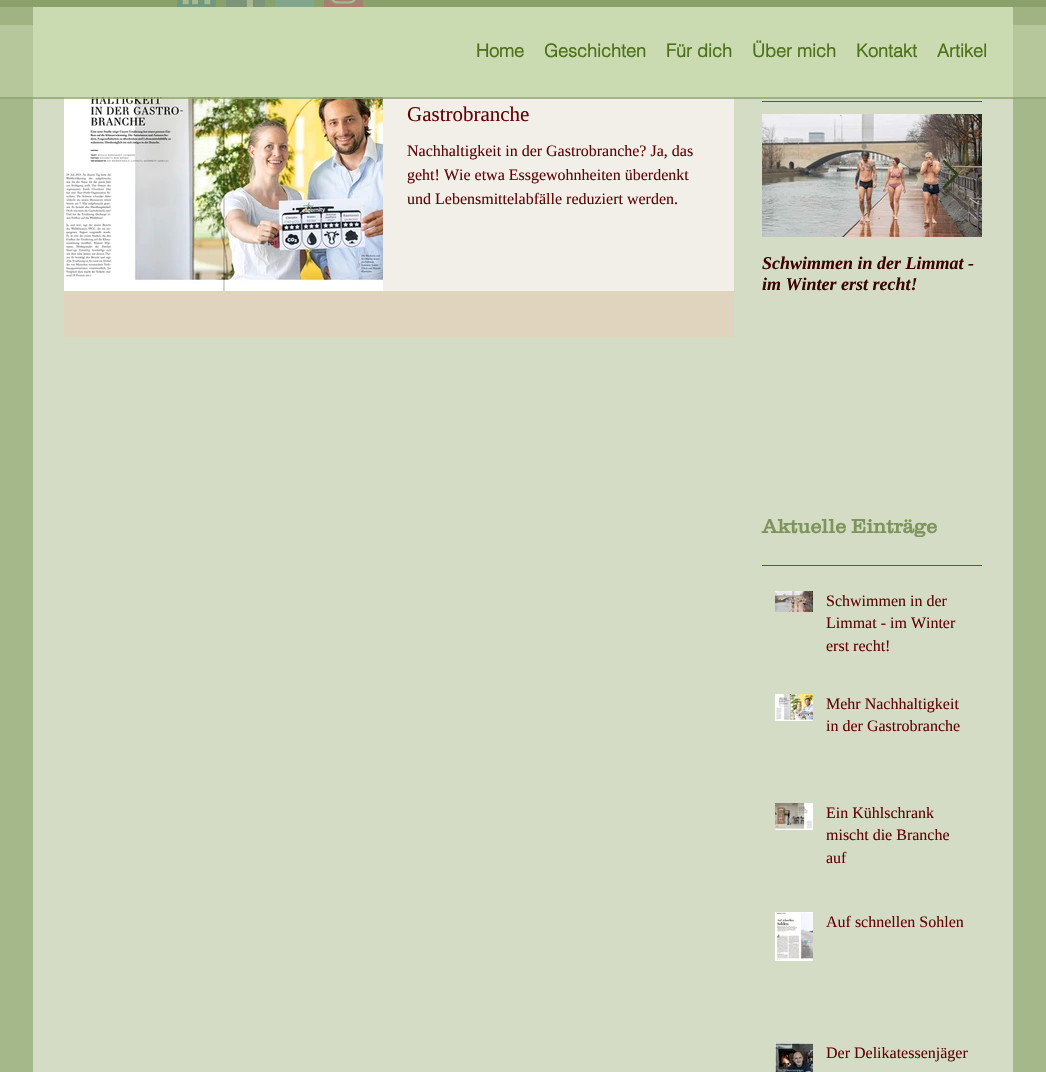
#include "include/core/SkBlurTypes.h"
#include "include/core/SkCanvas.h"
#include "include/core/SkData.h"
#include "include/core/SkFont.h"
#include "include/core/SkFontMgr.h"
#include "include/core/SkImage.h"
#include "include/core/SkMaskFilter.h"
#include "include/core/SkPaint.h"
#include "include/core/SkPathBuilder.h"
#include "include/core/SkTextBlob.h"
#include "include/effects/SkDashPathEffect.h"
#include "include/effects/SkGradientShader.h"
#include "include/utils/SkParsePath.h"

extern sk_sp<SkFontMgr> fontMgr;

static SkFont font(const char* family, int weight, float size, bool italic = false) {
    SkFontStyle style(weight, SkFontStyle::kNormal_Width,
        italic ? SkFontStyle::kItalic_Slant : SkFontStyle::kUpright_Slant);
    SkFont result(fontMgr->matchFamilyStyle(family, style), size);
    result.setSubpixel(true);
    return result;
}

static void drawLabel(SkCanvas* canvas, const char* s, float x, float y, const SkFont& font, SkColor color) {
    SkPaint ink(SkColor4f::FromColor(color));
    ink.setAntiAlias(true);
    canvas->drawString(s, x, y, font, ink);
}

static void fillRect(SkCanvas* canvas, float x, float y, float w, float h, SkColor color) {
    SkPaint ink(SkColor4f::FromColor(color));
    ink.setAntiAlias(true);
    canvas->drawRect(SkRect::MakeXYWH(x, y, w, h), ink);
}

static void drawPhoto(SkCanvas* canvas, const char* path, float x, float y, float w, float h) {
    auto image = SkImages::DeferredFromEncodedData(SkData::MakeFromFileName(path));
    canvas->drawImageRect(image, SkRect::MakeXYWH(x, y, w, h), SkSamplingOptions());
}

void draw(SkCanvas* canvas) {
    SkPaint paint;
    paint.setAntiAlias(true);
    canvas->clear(0xFFA5B889);
    fillRect(canvas, 33, 97, 980, 975, 0xFFD5DCC5);
    fillRect(canvas, 0, 0, 1046, 25, 0xFF7D955C);
    drawPhoto(canvas, "assets/img1.png", 177, 0, 39, 7);
    drawPhoto(canvas, "assets/img2.png", 226, 0, 39, 7);
    fillRect(canvas, 275, 0, 39, 7, 0xFF55ACEE);
    drawPhoto(canvas, "assets/img3.png", 324, 0, 39, 7);
    drawPhoto(canvas, "assets/img4.png", 64, 97, 319, 194);
    fillRect(canvas, 383, 97, 351, 194, 0xFFF2EFE9);
    fillRect(canvas, 0, 0, 1046, 99, 0x70CADBB1);
    fillRect(canvas, 0, 0, 1046, 7, 0x997D955C);
    fillRect(canvas, 0, 97, 1046, 2, 0x997D955C);
    fillRect(canvas, 33, 7, 980, 90, 0xFFCADBB1);
    SkFont font1 = font("helvetica", 700, 18);
    drawLabel(canvas, "Home", 476, 57, font1, 0xFF4D721A);
    drawLabel(canvas, "Geschichten", 544, 57, font1, 0xFF4D721A);
    drawLabel(canvas, "Für dich", 666, 57, font1, 0xFF4D721A);
    drawLabel(canvas, "Über mich", 752, 57, font1, 0xFF4D721A);
    drawLabel(canvas, "Kontakt", 856, 57, font1, 0xFF4D721A);
    drawLabel(canvas, "Artikel", 937, 57, font1, 0xFF4D721A);
    fillRect(canvas, 762, 101, 220, 1, 0xFF8F4120);
    fillRect(canvas, 64, 291, 670, 46, 0xFFE0D4BE);
    SkFont font2 = font("Liberation Serif", 400, 21);
    drawLabel(canvas, "Gastrobranche", 407, 121, font2, 0xFF600505);
    SkFont font3 = font("Liberation Serif", 400, 16);
    drawLabel(canvas, "Nachhaltigkeit in der Gastrobranche? Ja, das", 407, 156, font3, 0xFF600505);
    drawLabel(canvas, "geht! Wie etwa Essgewohnheiten überdenkt", 407, 180, font3, 0xFF600505);
    drawLabel(canvas, "und Lebensmittelabfälle reduziert werden.", 407, 204, font3, 0xFF600505);
    drawPhoto(canvas, "assets/img6.png", 762, 114, 220, 123);
    drawPhoto(canvas, "assets/img5.png", 942, 160, 17, 29);
    SkFont font4 = font("Liberation Serif", 700, 18, true);
    drawLabel(canvas, "Schwimmen in der Limmat -", 762, 269, font4, 0xFF3A0404);
    drawLabel(canvas, "im Winter erst recht!", 762, 290, font4, 0xFF3A0404);
    SkFont font5 = font("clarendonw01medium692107", 700, 20);
    drawLabel(canvas, "Aktuelle Einträge", 762, 533, font5, 0xFF7D955C);
    fillRect(canvas, 762, 565, 220, 1, 0xFF8F4120);
    drawPhoto(canvas, "assets/img7.png", 775, 591, 38, 21);
    drawLabel(canvas, "Schwimmen in der", 826, 606, font3, 0xFF600505);
    drawLabel(canvas, "Limmat - im Winter", 826, 628, font3, 0xFF600505);
    drawLabel(canvas, "erst recht!", 826, 651, font3, 0xFF600505);
    drawPhoto(canvas, "assets/img8.png", 775, 694, 38, 27);
    drawLabel(canvas, "Mehr Nachhaltigkeit", 826, 709, font3, 0xFF600505);
    drawLabel(canvas, "in der Gastrobranche", 826, 731, font3, 0xFF600505);
    drawPhoto(canvas, "assets/img9.png", 775, 803, 38, 27);
    drawLabel(canvas, "Ein Kühlschrank", 826, 818, font3, 0xFF600505);
    drawLabel(canvas, "mischt die Branche", 826, 840, font3, 0xFF600505);
    drawLabel(canvas, "auf", 826, 863, font3, 0xFF600505);
    drawPhoto(canvas, "assets/img10.png", 775, 912, 38, 49);
    drawLabel(canvas, "Auf schnellen Sohlen", 826, 927, font3, 0xFF600505);
    drawPhoto(canvas, "assets/img11.png", 775, 1043, 38, 29);
    drawLabel(canvas, "Der Delikatessenjäger", 826, 1058, font3, 0xFF600505);
}
